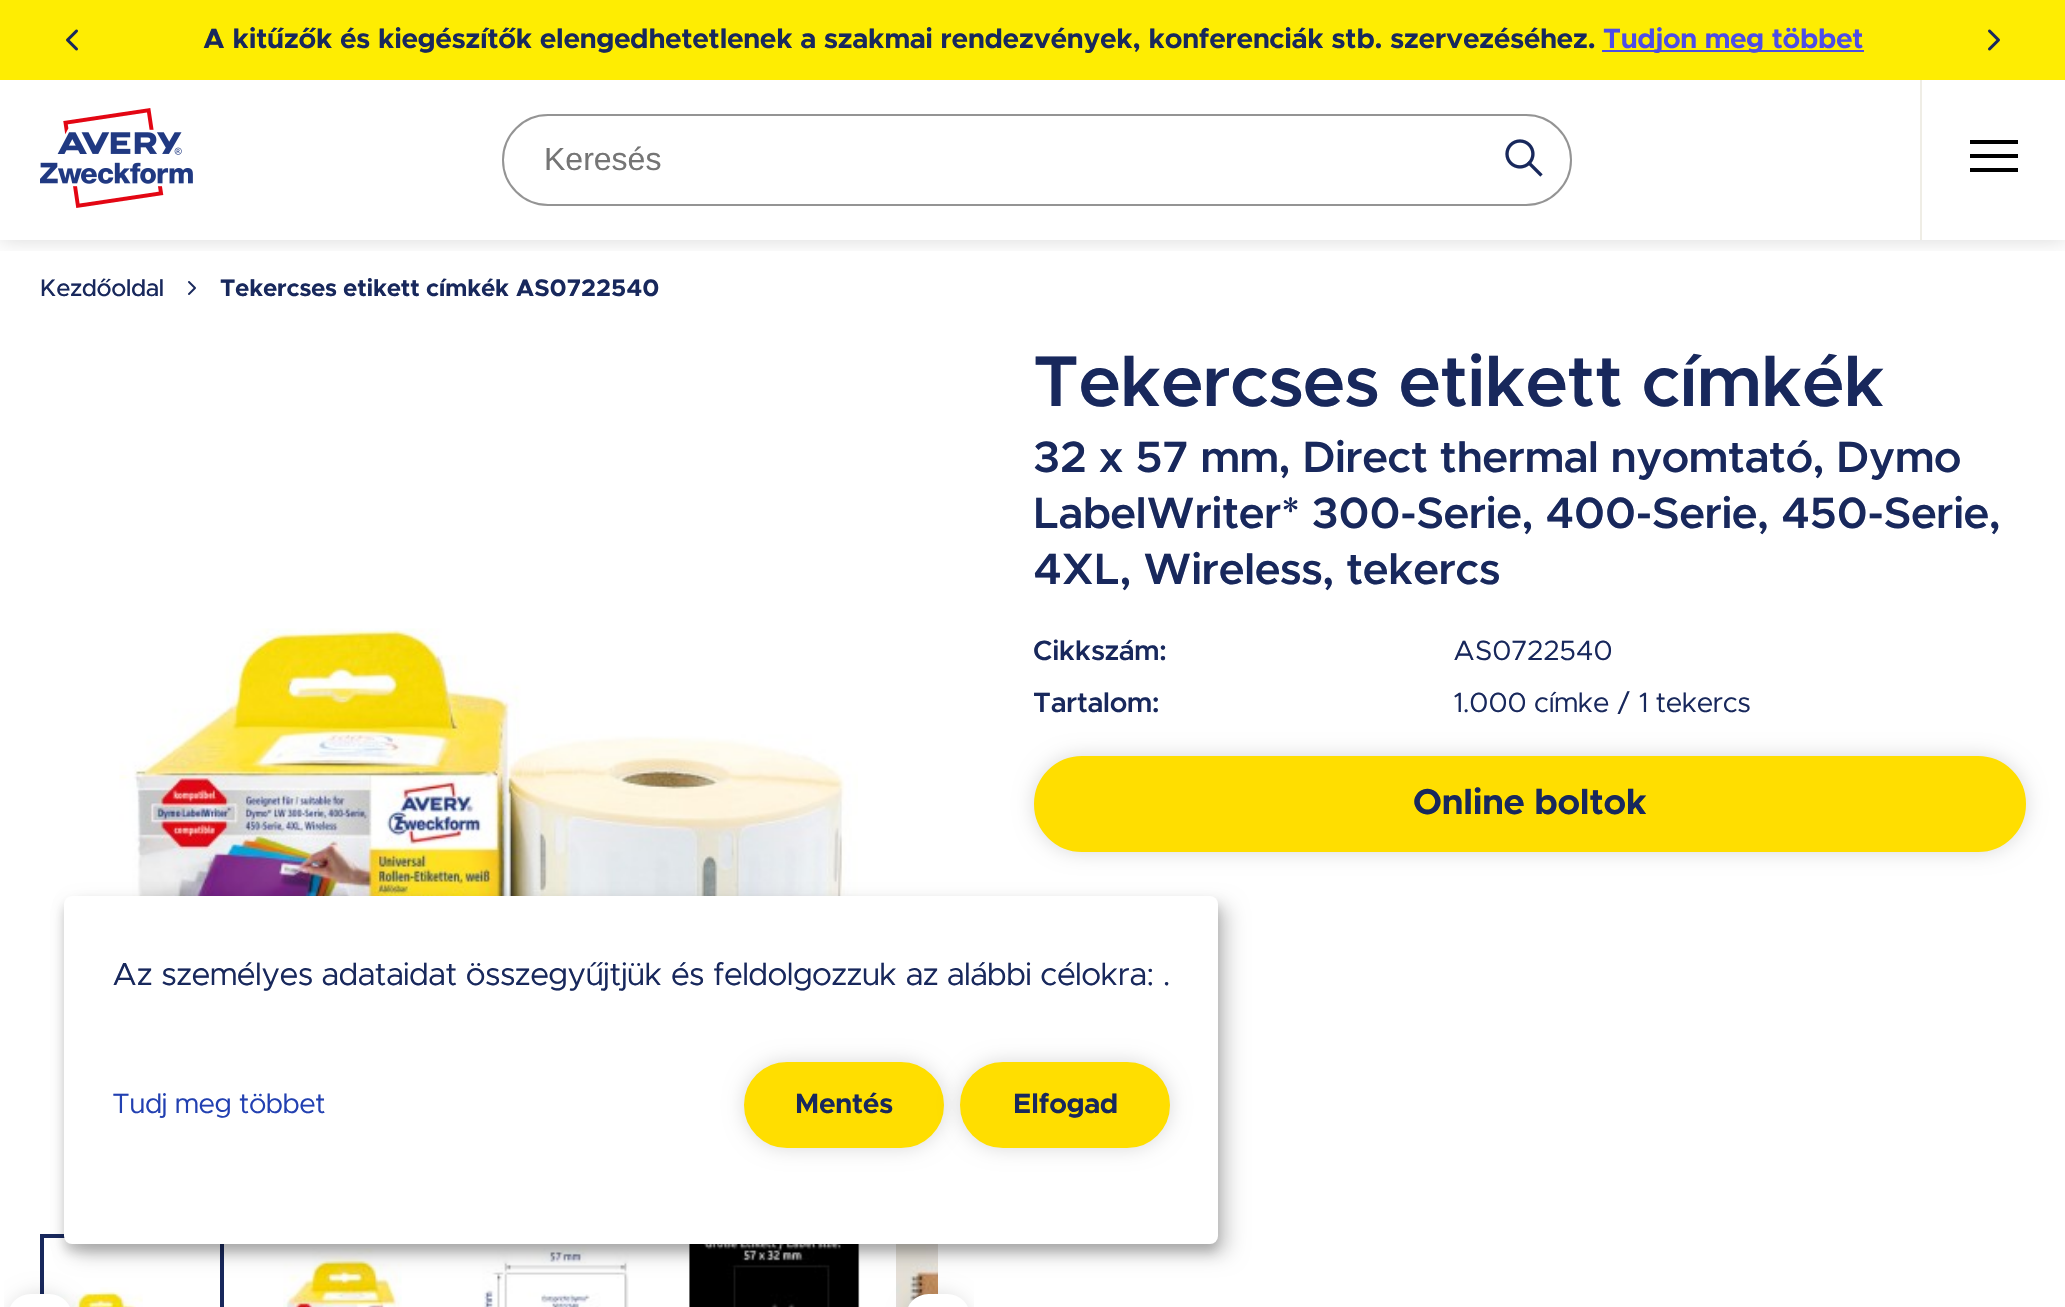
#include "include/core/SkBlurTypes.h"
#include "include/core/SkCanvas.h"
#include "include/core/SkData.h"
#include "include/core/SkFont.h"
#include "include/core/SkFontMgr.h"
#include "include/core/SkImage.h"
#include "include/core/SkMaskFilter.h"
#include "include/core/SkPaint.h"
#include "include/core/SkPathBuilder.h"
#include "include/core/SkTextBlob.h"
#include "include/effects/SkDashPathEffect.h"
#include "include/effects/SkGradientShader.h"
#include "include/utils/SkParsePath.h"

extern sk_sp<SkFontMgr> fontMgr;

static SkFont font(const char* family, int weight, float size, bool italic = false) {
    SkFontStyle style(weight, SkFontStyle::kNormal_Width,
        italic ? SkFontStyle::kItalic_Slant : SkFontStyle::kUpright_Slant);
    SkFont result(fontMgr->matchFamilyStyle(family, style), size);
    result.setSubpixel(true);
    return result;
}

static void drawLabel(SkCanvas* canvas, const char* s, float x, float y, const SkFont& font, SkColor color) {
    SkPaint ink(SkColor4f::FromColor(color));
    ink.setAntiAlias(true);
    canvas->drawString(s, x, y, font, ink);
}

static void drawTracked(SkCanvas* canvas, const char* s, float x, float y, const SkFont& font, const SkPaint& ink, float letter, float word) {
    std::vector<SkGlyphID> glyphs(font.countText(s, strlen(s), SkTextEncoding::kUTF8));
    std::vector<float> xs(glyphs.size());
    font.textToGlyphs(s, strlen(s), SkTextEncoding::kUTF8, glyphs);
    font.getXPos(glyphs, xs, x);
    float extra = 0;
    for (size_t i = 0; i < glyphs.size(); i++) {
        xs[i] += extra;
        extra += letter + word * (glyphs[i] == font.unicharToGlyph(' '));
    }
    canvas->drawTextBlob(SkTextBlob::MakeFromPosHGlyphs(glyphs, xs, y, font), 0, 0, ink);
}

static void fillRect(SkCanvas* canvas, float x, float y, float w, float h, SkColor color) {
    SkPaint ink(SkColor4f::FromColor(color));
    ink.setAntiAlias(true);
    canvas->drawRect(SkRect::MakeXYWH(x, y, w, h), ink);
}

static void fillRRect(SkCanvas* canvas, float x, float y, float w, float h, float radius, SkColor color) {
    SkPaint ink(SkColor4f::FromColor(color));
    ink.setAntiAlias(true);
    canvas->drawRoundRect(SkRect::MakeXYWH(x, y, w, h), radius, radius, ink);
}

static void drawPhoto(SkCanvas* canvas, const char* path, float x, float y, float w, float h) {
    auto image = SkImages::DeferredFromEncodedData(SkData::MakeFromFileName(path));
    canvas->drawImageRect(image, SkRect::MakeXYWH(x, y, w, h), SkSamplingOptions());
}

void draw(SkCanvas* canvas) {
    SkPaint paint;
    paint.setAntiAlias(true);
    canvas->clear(0xFFFFFFFF);
    canvas->save();
    canvas->clipRect(SkRect::MakeXYWH(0, 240, 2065, 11));
    paint.setColor(0x26000000);
    paint.setMaskFilter(SkMaskFilter::MakeBlur(kNormal_SkBlurStyle, 10));
    canvas->drawRect(SkRect::MakeXYWH(0, 0, 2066, 240), paint);
    paint.setMaskFilter(nullptr);
    canvas->restore();
    fillRect(canvas, 0, 0, 2065, 80, 0xFFFEED02);
    drawPhoto(canvas, "assets/img1.png", 66, 29, 12, 22);
    SkFont font1 = font("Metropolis", 700, 28);
    paint.setColor(0xFF18285C);
    drawTracked(canvas, "A kitűzők és kiegészítők elengedhetetlenek a szakmai rendezvények, konferenciák stb. szervezéséhez.", 203, 48, font1, paint, 0, 0.25f);
    fillRect(canvas, 1602, 50, 262, 2, 0xFF4D4DE6);
    drawLabel(canvas, "Tudjon meg többet", 1603, 48, font1, 0xFF4D4DE6);
    drawPhoto(canvas, "assets/img2.png", 1988, 29, 12, 22);
    drawPhoto(canvas, "assets/img3.png", 40, 108, 153, 100);
    paint.setStroke(true);
    paint.setStrokeWidth(2);
    paint.setColor(0xFF949494);
    canvas->drawRoundRect(SkRect::MakeXYWH(503, 115, 1068, 90), 45, 45, paint);
    SkFont font2 = font("Liberation Sans", 400, 32);
    drawLabel(canvas, "Keresés", 544, 170, font2, 0xFF757575);
    drawPhoto(canvas, "assets/img4.png", 1505, 139, 38, 38);
    fillRect(canvas, 1920, 80, 2, 160, 0xFFEFEDE5);
    fillRect(canvas, 1970, 140, 48, 4, 0xFF000000);
    fillRect(canvas, 1970, 154, 48, 4, 0xFF000000);
    fillRect(canvas, 1970, 168, 48, 4, 0xFF000000);
    SkFont font3 = font("Metropolis", 500, 24);
    drawLabel(canvas, "Kezdőoldal", 40, 296, font3, 0xFF18285C);
    drawPhoto(canvas, "assets/img5.png", 188, 281, 8, 14);
    SkFont font4 = font("Metropolis", 700, 24);
    drawLabel(canvas, "Tekercses etikett címkék AS0722540", 220, 296, font4, 0xFF18285C);
    drawPhoto(canvas, "assets/img6.png", 119, 628, 739, 268);
    paint.setStrokeWidth(4);
    paint.setColor(0xFF18285C);
    canvas->drawRect(SkRect::MakeXYWH(42, 1236, 180, 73), paint);
    drawPhoto(canvas, "assets/img7.png", 54, 1287, 89, 20);
    drawPhoto(canvas, "assets/img8.png", 283, 1248, 119, 59);
    drawPhoto(canvas, "assets/img9.png", 482, 1244, 147, 63);
    drawPhoto(canvas, "assets/img10.png", 689, 1244, 171, 63);
    drawPhoto(canvas, "assets/img11.png", 896, 1244, 42, 63);
    canvas->save();
    canvas->clipRect(SkRect::MakeXYWH(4, 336, 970, 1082));
    paint.setStroke(false);
    paint.setColor(0x26000000);
    paint.setMaskFilter(SkMaskFilter::MakeBlur(kNormal_SkBlurStyle, 10));
    canvas->drawRoundRect(SkRect::MakeXYWH(8, 1294, 64, 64), 32, 32, paint);
    paint.setMaskFilter(nullptr);
    canvas->restore();
    fillRRect(canvas, 8, 1294, 64, 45, 32, 0xFFFFFFFF);
    canvas->save();
    canvas->clipRect(SkRect::MakeXYWH(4, 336, 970, 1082));
    paint.setMaskFilter(SkMaskFilter::MakeBlur(kNormal_SkBlurStyle, 10));
    canvas->drawRoundRect(SkRect::MakeXYWH(906, 1294, 64, 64), 32, 32, paint);
    paint.setMaskFilter(nullptr);
    canvas->restore();
    fillRRect(canvas, 906, 1294, 64, 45, 32, 0xFFFFFFFF);
    SkFont font5 = font("Metropolis", 600, 72);
    drawLabel(canvas, "Tekercses etikett címkék", 1033, 406, font5, 0xFF18285C);
    SkFont font6 = font("Metropolis", 600, 44);
    drawLabel(canvas, "32 x 57 mm, Direct thermal nyomtató, Dymo", 1033, 472, font6, 0xFF18285C);
    drawLabel(canvas, "LabelWriter* 300-Serie, 400-Serie, 450-Serie,", 1033, 528, font6, 0xFF18285C);
    drawLabel(canvas, "4XL, Wireless, tekercs", 1033, 584, font6, 0xFF18285C);
    SkFont font7 = font("Metropolis", 600, 28);
    drawLabel(canvas, "Cikkszám:", 1033, 660, font7, 0xFF18285C);
    SkFont font8 = font("Metropolis", 400, 28);
    drawLabel(canvas, "AS0722540", 1453, 660, font8, 0xFF18285C);
    drawLabel(canvas, "Tartalom:", 1033, 712, font7, 0xFF18285C);
    drawLabel(canvas, "1.000 címke / 1 tekercs", 1453, 712, font8, 0xFF18285C);
    paint.setMaskFilter(SkMaskFilter::MakeBlur(kNormal_SkBlurStyle, 10));
    canvas->drawRoundRect(SkRect::MakeXYWH(1034, 756, 992, 96), 48, 48, paint);
    paint.setMaskFilter(nullptr);
    paint.setColor(0xFFFFDE00);
    canvas->drawRoundRect(SkRect::MakeXYWH(1036, 758, 988, 92), 46, 46, paint);
    paint.setStroke(true);
    canvas->drawRoundRect(SkRect::MakeXYWH(1036, 758, 988, 92), 46, 46, paint);
    SkFont font9 = font("Metropolis", 700, 36);
    drawLabel(canvas, "Online boltok", 1413, 814, font9, 0xFF18285C);
    paint.setStroke(false);
    paint.setColor(0x30000000);
    paint.setMaskFilter(SkMaskFilter::MakeBlur(kNormal_SkBlurStyle, 10));
    canvas->drawRoundRect(SkRect::MakeXYWH(74, 906, 1154, 348), 8, 8, paint);
    paint.setMaskFilter(nullptr);
    paint.setColor(0x33000000);
    paint.setMaskFilter(SkMaskFilter::MakeBlur(kNormal_SkBlurStyle, 6));
    canvas->drawRoundRect(SkRect::MakeXYWH(64, 904, 1154, 348), 8, 8, paint);
    paint.setMaskFilter(nullptr);
    fillRRect(canvas, 64, 896, 1154, 348, 8, 0xFFFFFFFF);
    SkFont font10 = font("Metropolis", 400, 32);
    paint.setColor(0xFF18285C);
    drawTracked(canvas, "Az személyes adataidat összegyűjtjük és feldolgozzuk az alábbi célokra:", 112, 985, font10, paint, 0, 0.25f);
    drawLabel(canvas, ".", 1163, 985, font10, 0xFF18285C);
    drawLabel(canvas, "Tudj meg többet", 112, 1113, font8, 0xFF2240B1);
    paint.setColor(0x26000000);
    paint.setMaskFilter(SkMaskFilter::MakeBlur(kNormal_SkBlurStyle, 10));
    canvas->drawRoundRect(SkRect::MakeXYWH(744, 1062, 200, 86), 43, 43, paint);
    paint.setMaskFilter(nullptr);
    paint.setColor(0xFFFFDE00);
    canvas->drawRoundRect(SkRect::MakeXYWH(746, 1064, 196, 82), 41, 41, paint);
    paint.setStroke(true);
    canvas->drawRoundRect(SkRect::MakeXYWH(746, 1064, 196, 82), 41, 41, paint);
    drawLabel(canvas, "Mentés", 795, 1113, font1, 0xFF18285C);
    paint.setStroke(false);
    paint.setColor(0x26000000);
    paint.setMaskFilter(SkMaskFilter::MakeBlur(kNormal_SkBlurStyle, 10));
    canvas->drawRoundRect(SkRect::MakeXYWH(960, 1062, 210, 86), 43, 43, paint);
    paint.setMaskFilter(nullptr);
    paint.setColor(0xFFFFDE00);
    canvas->drawRoundRect(SkRect::MakeXYWH(962, 1064, 206, 82), 41, 41, paint);
    paint.setStroke(true);
    canvas->drawRoundRect(SkRect::MakeXYWH(962, 1064, 206, 82), 41, 41, paint);
    drawLabel(canvas, "Elfogad", 1013, 1113, font1, 0xFF18285C);
}
